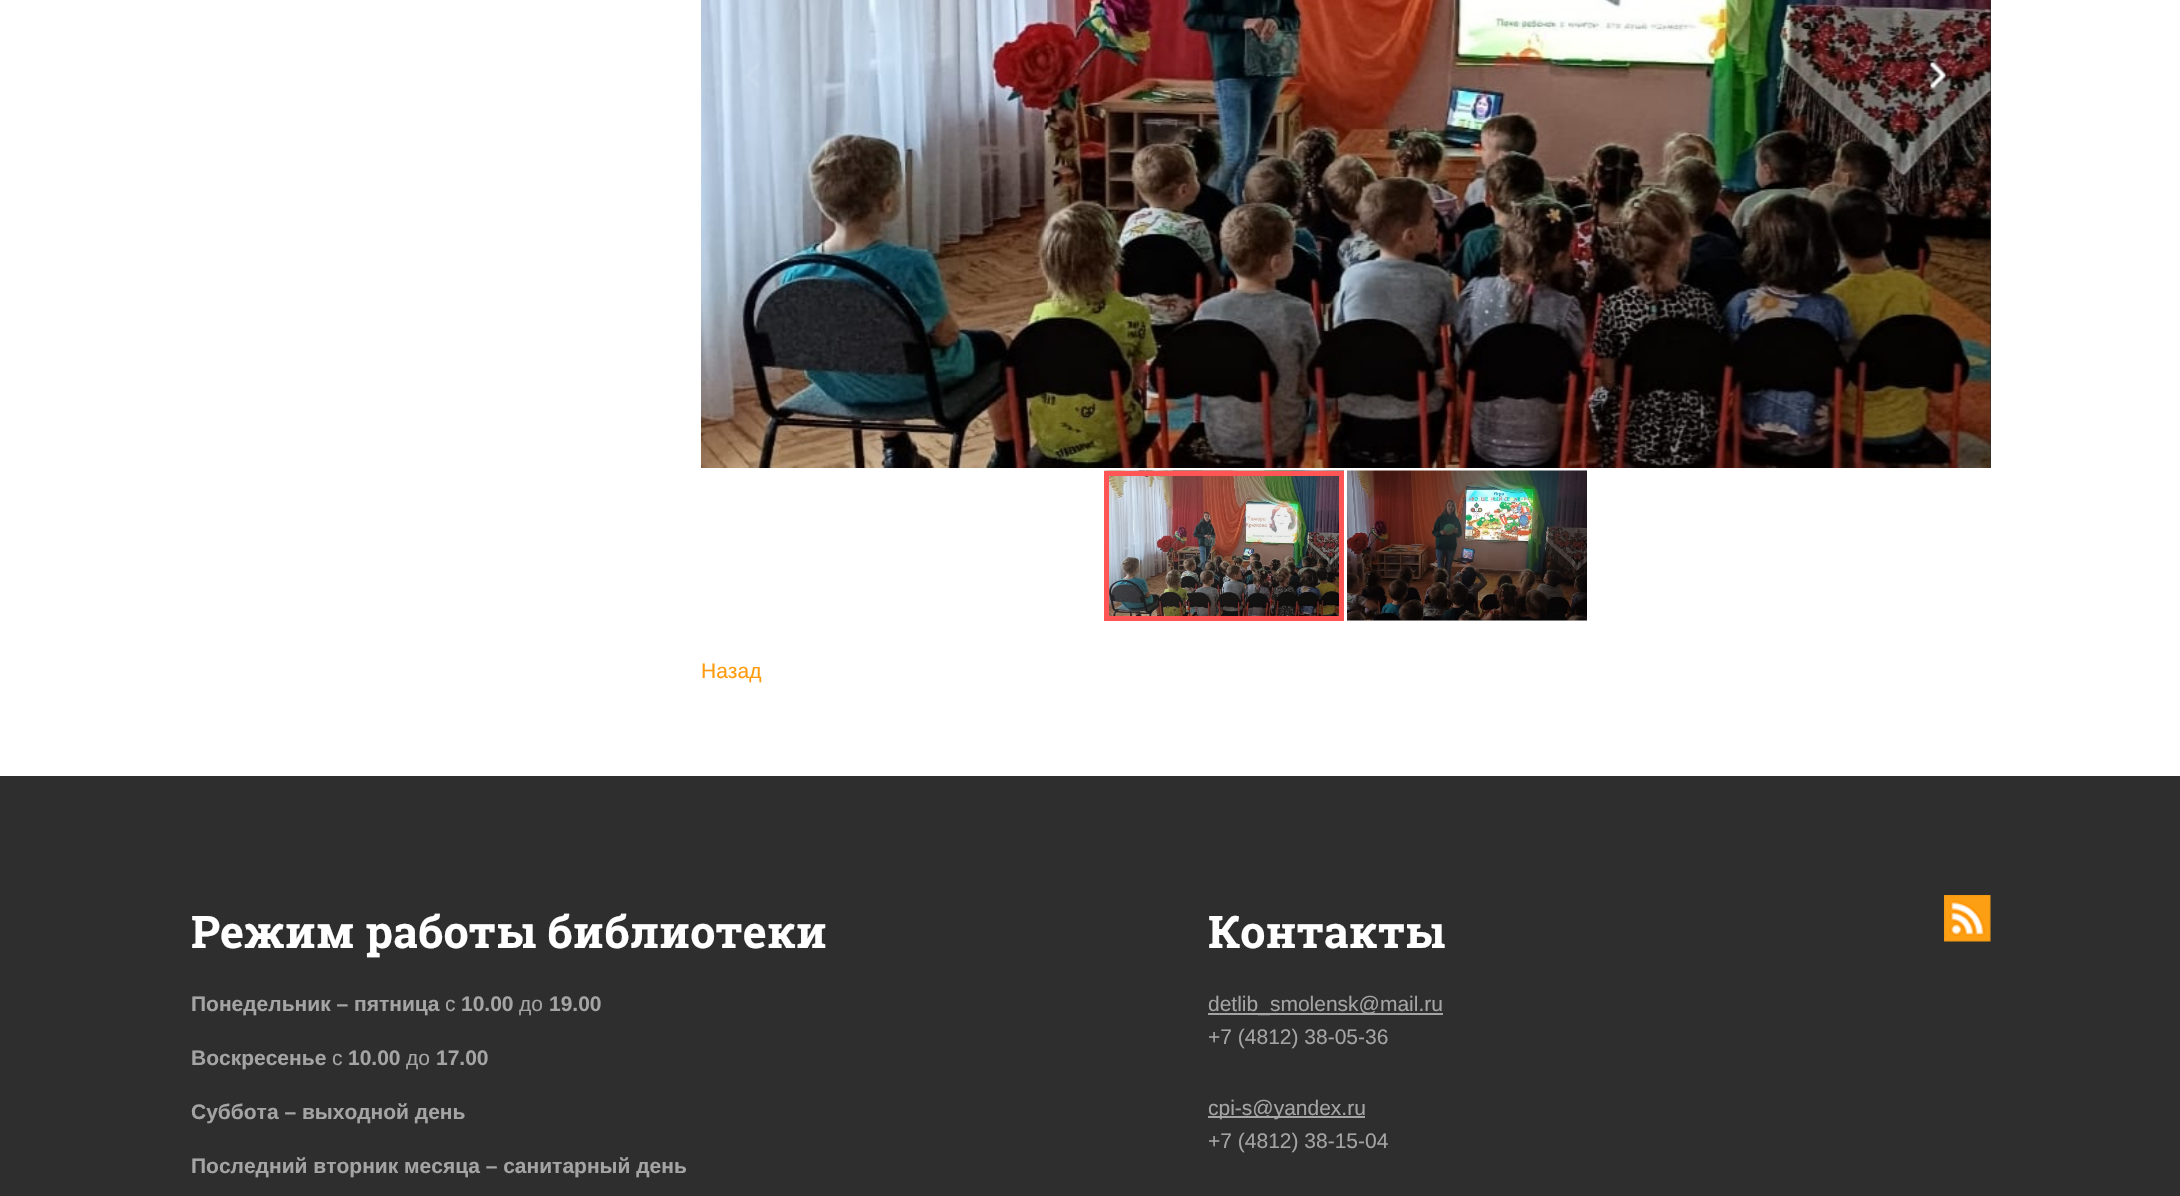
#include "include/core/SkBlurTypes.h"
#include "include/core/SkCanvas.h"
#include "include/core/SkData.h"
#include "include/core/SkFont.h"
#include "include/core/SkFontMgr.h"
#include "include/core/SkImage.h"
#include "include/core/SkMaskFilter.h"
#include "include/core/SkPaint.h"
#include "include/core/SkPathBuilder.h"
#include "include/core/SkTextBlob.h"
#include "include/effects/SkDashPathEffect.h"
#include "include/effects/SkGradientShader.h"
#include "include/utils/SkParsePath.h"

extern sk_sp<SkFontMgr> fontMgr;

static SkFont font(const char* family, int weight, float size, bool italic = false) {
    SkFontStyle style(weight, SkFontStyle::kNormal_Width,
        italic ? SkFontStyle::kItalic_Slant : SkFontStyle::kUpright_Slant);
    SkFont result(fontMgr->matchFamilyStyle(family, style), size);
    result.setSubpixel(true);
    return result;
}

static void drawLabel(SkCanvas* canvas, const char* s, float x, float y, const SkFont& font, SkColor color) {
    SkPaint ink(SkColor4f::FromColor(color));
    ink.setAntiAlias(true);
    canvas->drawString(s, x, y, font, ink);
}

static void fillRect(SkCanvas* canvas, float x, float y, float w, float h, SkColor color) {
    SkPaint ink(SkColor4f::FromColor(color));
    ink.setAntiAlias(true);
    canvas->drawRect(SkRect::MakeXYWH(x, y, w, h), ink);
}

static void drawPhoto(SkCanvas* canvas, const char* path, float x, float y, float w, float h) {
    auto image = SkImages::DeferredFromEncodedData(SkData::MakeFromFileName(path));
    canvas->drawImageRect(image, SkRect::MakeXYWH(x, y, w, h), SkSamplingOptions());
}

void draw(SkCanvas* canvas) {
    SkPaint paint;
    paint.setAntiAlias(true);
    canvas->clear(0xFFFFFFFF);
    fillRect(canvas, 1989, 0, 2, 468, 0xFF2E2E2E);
    drawPhoto(canvas, "assets/img1.png", 701, 0, 1290, 468);
    drawPhoto(canvas, "assets/img2.png", 746, 63, 14, 25);
    drawPhoto(canvas, "assets/img3.png", 1930, 62, 16, 27);
    drawPhoto(canvas, "assets/img4.png", 1104, 470, 240, 146);
    fillRect(canvas, 1347, 620, 240, 1, 0xFFE5E5E5);
    drawPhoto(canvas, "assets/img5.png", 1347, 470, 240, 151);
    paint.setStroke(true);
    paint.setStrokeWidth(5);
    paint.setColor(0xFFFF5555);
    canvas->drawRect(SkRect::MakeXYWH(1106.5f, 473.5f, 235, 145), paint);
    SkFont font1 = font("Liberation Sans", 400, 21);
    drawLabel(canvas, "Назад", 701, 678, font1, 0xFFFF9B0D);
    fillRect(canvas, 0, 776, 2180, 420, 0xFF2E2E2E);
    SkFont font2 = font("Roboto Slab", 700, 45);
    drawLabel(canvas, "Режим работы библиотеки", 191, 948, font2, 0xFFFFFFFF);
    SkFont font3 = font("Liberation Sans", 700, 21);
    drawLabel(canvas, "Понедельник – пятница", 191, 1011, font3, 0xFFA4A4A4);
    drawLabel(canvas, "с", 445, 1011, font1, 0xFFA4A4A4);
    drawLabel(canvas, "10.00", 461, 1011, font3, 0xFFA4A4A4);
    drawLabel(canvas, "до", 519, 1011, font1, 0xFFA4A4A4);
    drawLabel(canvas, "19.00", 549, 1011, font3, 0xFFA4A4A4);
    drawLabel(canvas, "Воскресенье", 191, 1065, font3, 0xFFA4A4A4);
    drawLabel(canvas, "с", 332, 1065, font1, 0xFFA4A4A4);
    drawLabel(canvas, "10.00", 348, 1065, font3, 0xFFA4A4A4);
    drawLabel(canvas, "до", 406, 1065, font1, 0xFFA4A4A4);
    drawLabel(canvas, "17.00", 436, 1065, font3, 0xFFA4A4A4);
    drawLabel(canvas, "Суббота – выходной день", 191, 1119, font3, 0xFFA4A4A4);
    drawLabel(canvas, "Последний вторник месяца – санитарный день", 191, 1173, font3, 0xFFA4A4A4);
    drawLabel(canvas, "Контакты", 1208, 948, font2, 0xFFFFFFFF);
    fillRect(canvas, 1208, 1013, 235, 2, 0xFFA4A4A4);
    drawLabel(canvas, "detlib_smolensk@mail.ru", 1208, 1011, font1, 0xFFA4A4A4);
    drawLabel(canvas, "+7 (4812) 38-05-36", 1208, 1044, font1, 0xFFA4A4A4);
    fillRect(canvas, 1208, 1116, 157, 2, 0xFFA4A4A4);
    drawLabel(canvas, "cpi-s@yandex.ru", 1208, 1115, font1, 0xFFA4A4A4);
    drawLabel(canvas, "+7 (4812) 38-15-04", 1208, 1148, font1, 0xFFA4A4A4);
    drawPhoto(canvas, "assets/img6.png", 1944, 895, 47, 47);
}
